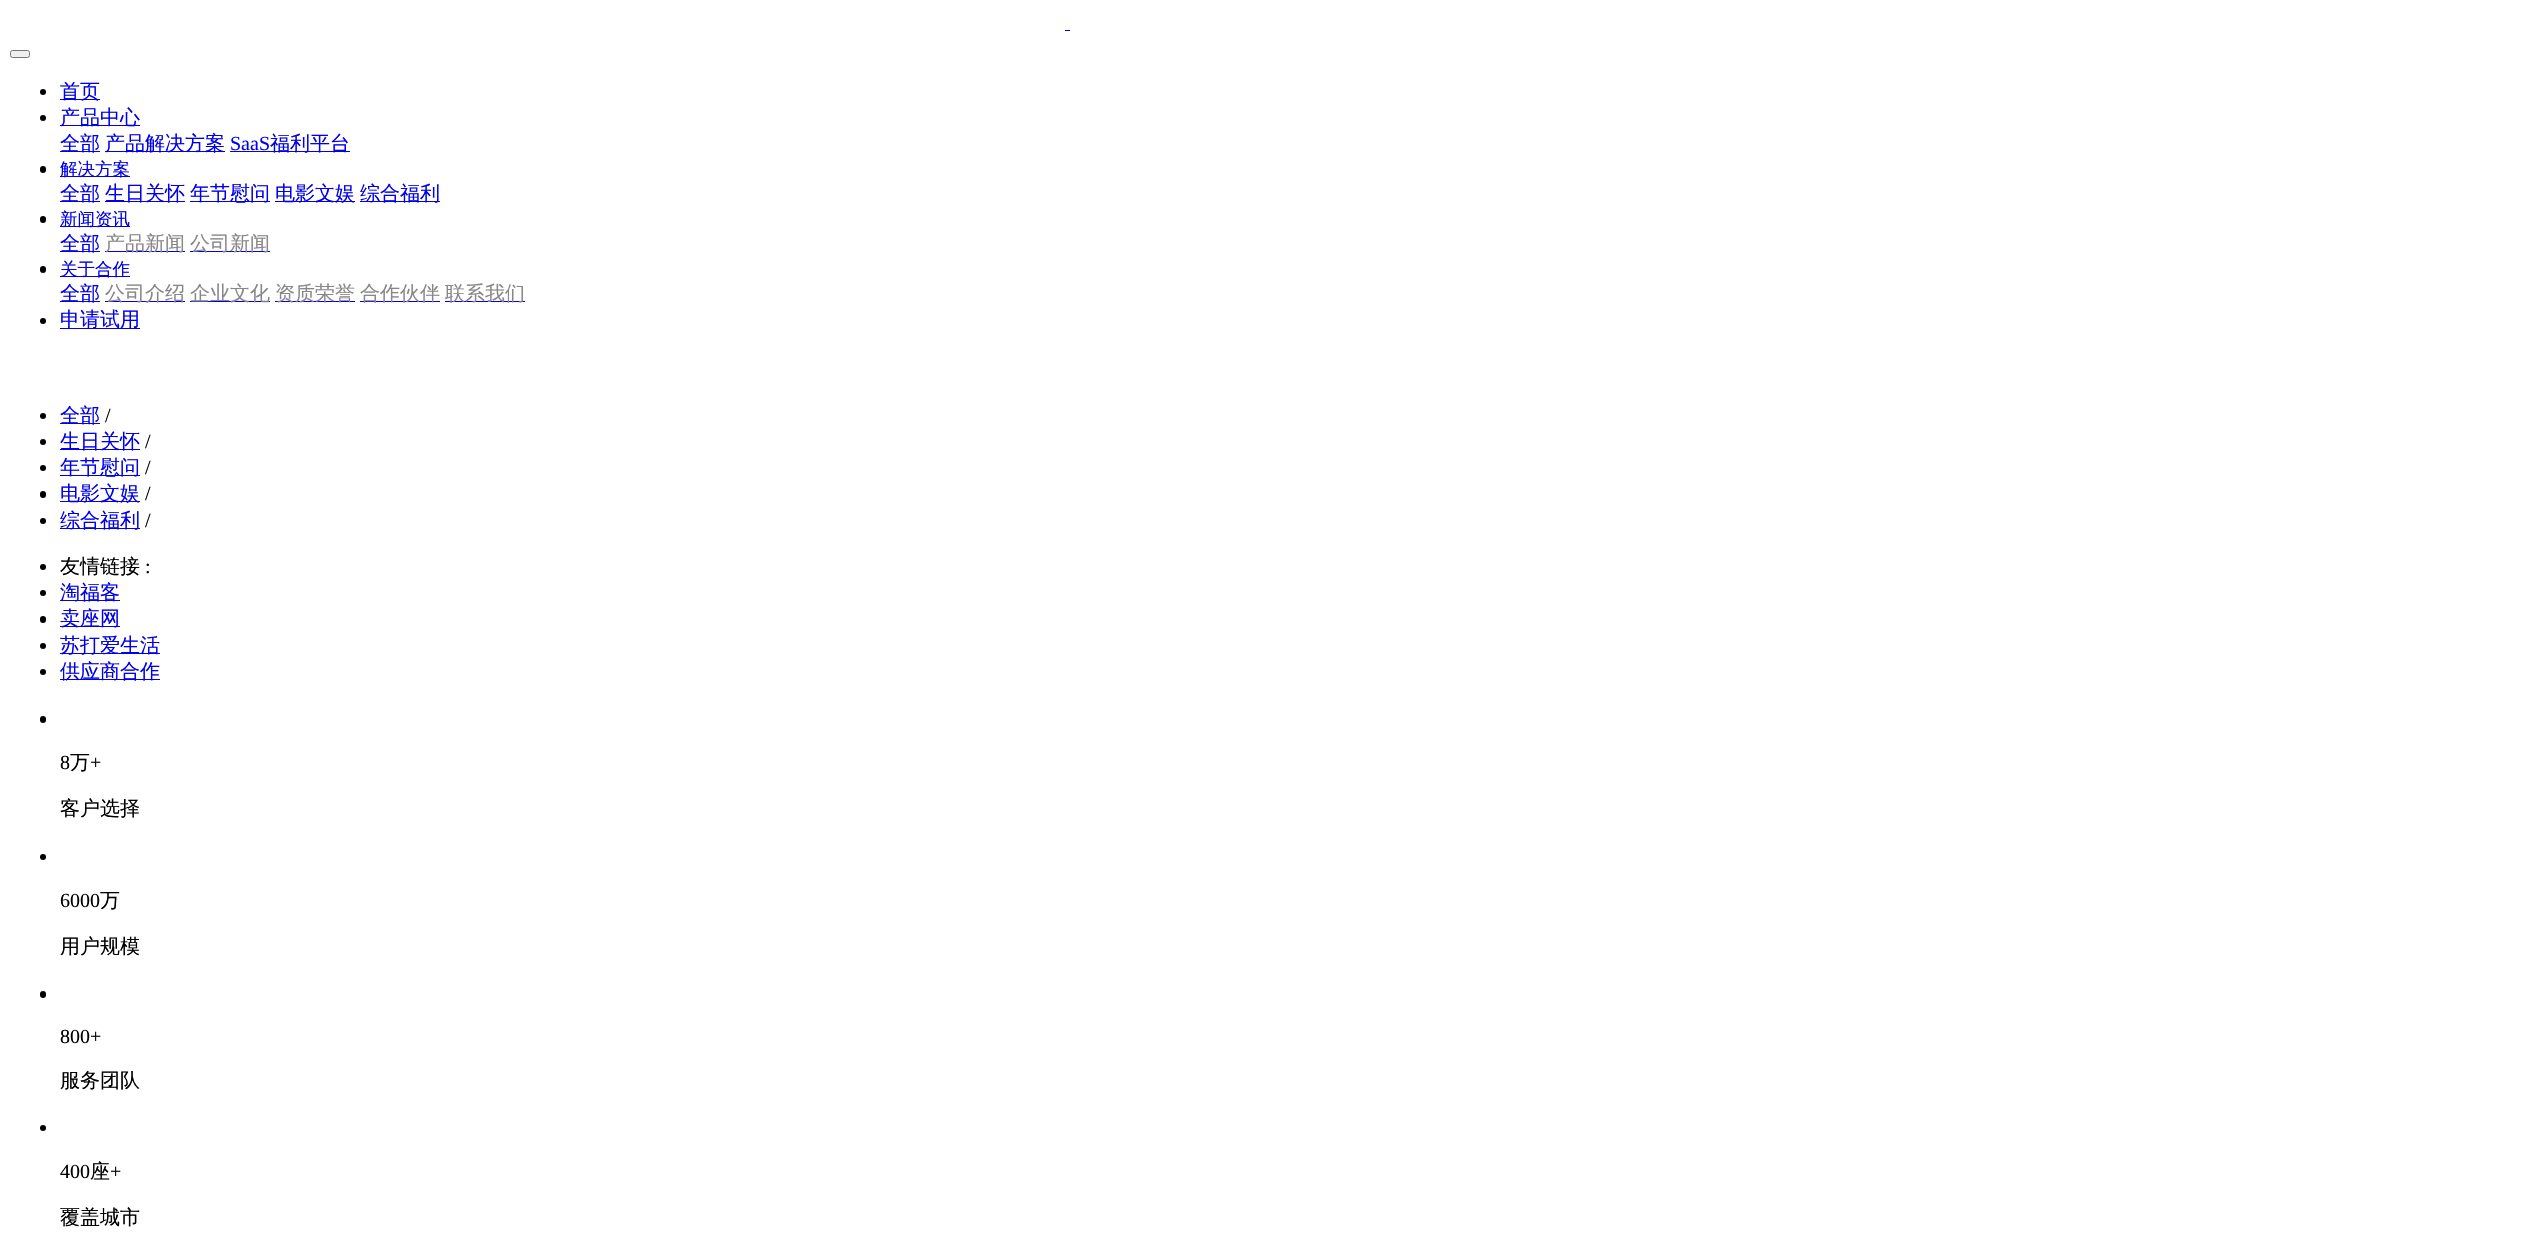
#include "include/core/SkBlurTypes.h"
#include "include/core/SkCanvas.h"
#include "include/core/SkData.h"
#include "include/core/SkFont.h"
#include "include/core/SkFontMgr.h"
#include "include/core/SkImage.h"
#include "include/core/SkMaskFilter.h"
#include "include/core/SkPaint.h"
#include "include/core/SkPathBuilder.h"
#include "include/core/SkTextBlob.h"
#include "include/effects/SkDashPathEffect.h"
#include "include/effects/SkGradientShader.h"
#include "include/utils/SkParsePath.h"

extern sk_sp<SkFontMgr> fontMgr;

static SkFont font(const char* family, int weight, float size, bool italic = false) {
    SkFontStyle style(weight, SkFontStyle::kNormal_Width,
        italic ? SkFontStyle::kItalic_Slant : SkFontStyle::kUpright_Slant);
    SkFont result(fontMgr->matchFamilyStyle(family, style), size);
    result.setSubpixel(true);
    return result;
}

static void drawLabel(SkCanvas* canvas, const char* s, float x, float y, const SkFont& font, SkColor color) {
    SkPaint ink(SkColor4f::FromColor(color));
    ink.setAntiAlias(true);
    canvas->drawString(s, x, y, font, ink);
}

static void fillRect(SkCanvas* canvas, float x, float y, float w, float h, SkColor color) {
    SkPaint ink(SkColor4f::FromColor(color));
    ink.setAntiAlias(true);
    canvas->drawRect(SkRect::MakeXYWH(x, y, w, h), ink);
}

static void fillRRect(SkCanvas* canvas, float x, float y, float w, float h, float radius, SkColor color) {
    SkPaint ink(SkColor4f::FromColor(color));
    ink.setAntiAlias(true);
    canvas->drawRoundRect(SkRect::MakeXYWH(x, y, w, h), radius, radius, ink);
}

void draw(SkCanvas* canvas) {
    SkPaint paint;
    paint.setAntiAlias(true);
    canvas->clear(0xFFFFFFFF);
    fillRect(canvas, 1065, 30, 5, 1, 0xFF0000EE);
    paint.setColor(0xFFEFEFEF);
    canvas->drawRoundRect(SkRect::MakeXYWH(10.5f, 50.5f, 19, 7), 2, 2, paint);
    paint.setStroke(true);
    paint.setStrokeWidth(1);
    paint.setColor(0xFF767676);
    canvas->drawRoundRect(SkRect::MakeXYWH(10.5f, 50.5f, 19, 7), 2, 2, paint);
    paint.setStroke(false);
    paint.setColor(0xFF000000);
    canvas->drawCircle(43, 92, 3, paint);
    fillRect(canvas, 60, 99, 40, 1, 0xFF0000EE);
    SkFont font1 = font("WenQuanYi Zen Hei", 500, 20);
    drawLabel(canvas, "首页", 60, 98, font1, 0xFF0000EE);
    canvas->drawCircle(43, 118, 3, paint);
    fillRect(canvas, 60, 125, 80, 1, 0xFF0000EE);
    drawLabel(canvas, "产品中心", 60, 124, font1, 0xFF0000EE);
    fillRect(canvas, 60, 151, 40, 1, 0xFF0000EE);
    drawLabel(canvas, "全部", 60, 150, font1, 0xFF0000EE);
    fillRect(canvas, 105, 151, 120, 1, 0xFF0000EE);
    drawLabel(canvas, "产品解决方案", 105, 150, font1, 0xFF0000EE);
    SkFont font2 = font("Liberation Serif", 400, 20);
    drawLabel(canvas, "SaaS", 230, 150, font2, 0xFF0000EE);
    fillRect(canvas, 230, 151, 120, 1, 0xFF0000EE);
    drawLabel(canvas, "福利平台", 270, 150, font1, 0xFF0000EE);
    fillRRect(canvas, 40, 166, 6, 7, 3, 0xFF000000);
    fillRect(canvas, 60, 176, 70, 1, 0xFF0000EE);
    SkFont font3 = font("WenQuanYi Zen Hei", 500, 17.5f);
    drawLabel(canvas, "解决方案", 60, 175, font3, 0xFF0000EE);
    fillRect(canvas, 60, 201, 40, 1, 0xFF0000EE);
    drawLabel(canvas, "全部", 60, 200, font1, 0xFF0000EE);
    fillRect(canvas, 105, 201, 80, 1, 0xFF0000EE);
    drawLabel(canvas, "生日关怀", 105, 200, font1, 0xFF0000EE);
    fillRect(canvas, 190, 201, 80, 1, 0xFF0000EE);
    drawLabel(canvas, "年节慰问", 190, 200, font1, 0xFF0000EE);
    fillRect(canvas, 275, 201, 80, 1, 0xFF0000EE);
    drawLabel(canvas, "电影文娱", 275, 200, font1, 0xFF0000EE);
    fillRect(canvas, 360, 201, 80, 1, 0xFF0000EE);
    drawLabel(canvas, "综合福利", 360, 200, font1, 0xFF0000EE);
    fillRRect(canvas, 40, 216, 6, 7, 3, 0xFF000000);
    fillRect(canvas, 60, 226, 70, 1, 0xFF0000EE);
    drawLabel(canvas, "新闻资讯", 60, 225, font3, 0xFF0000EE);
    fillRect(canvas, 60, 251, 40, 1, 0xFF0000EE);
    drawLabel(canvas, "全部", 60, 250, font1, 0xFF0000EE);
    fillRect(canvas, 105, 251, 80, 1, 0xFF0000EE);
    drawLabel(canvas, "产品新闻", 105, 250, font1, 0xFF878787);
    fillRect(canvas, 190, 251, 80, 1, 0xFF0000EE);
    drawLabel(canvas, "公司新闻", 190, 250, font1, 0xFF878787);
    fillRRect(canvas, 40, 266, 6, 7, 3, 0xFF000000);
    fillRect(canvas, 60, 276, 70, 1, 0xFF0000EE);
    drawLabel(canvas, "关于合作", 60, 275, font3, 0xFF0000EE);
    fillRect(canvas, 60, 301, 40, 1, 0xFF0000EE);
    drawLabel(canvas, "全部", 60, 300, font1, 0xFF0000EE);
    fillRect(canvas, 105, 301, 80, 1, 0xFF0000EE);
    drawLabel(canvas, "公司介绍", 105, 300, font1, 0xFF878787);
    fillRect(canvas, 190, 301, 80, 1, 0xFF0000EE);
    drawLabel(canvas, "企业文化", 190, 300, font1, 0xFF878787);
    fillRect(canvas, 275, 301, 80, 1, 0xFF0000EE);
    drawLabel(canvas, "资质荣誉", 275, 300, font1, 0xFF878787);
    fillRect(canvas, 360, 301, 80, 1, 0xFF0000EE);
    drawLabel(canvas, "合作伙伴", 360, 300, font1, 0xFF878787);
    fillRect(canvas, 445, 301, 80, 1, 0xFF0000EE);
    drawLabel(canvas, "联系我们", 445, 300, font1, 0xFF878787);
    canvas->drawCircle(43, 321, 3, paint);
    fillRect(canvas, 60, 328, 80, 1, 0xFF0000EE);
    drawLabel(canvas, "申请试用", 60, 326, font1, 0xFF0000EE);
    canvas->drawCircle(43, 416, 3, paint);
    fillRect(canvas, 60, 423, 40, 1, 0xFF0000EE);
    drawLabel(canvas, "全部", 60, 422, font1, 0xFF0000EE);
    drawLabel(canvas, "/", 105, 422, font2, 0xFF000000);
    canvas->drawCircle(43, 442, 3, paint);
    fillRect(canvas, 60, 449, 80, 1, 0xFF0000EE);
    drawLabel(canvas, "生日关怀", 60, 448, font1, 0xFF0000EE);
    drawLabel(canvas, "/", 145, 448, font2, 0xFF000000);
    canvas->drawCircle(43, 468, 3, paint);
    fillRect(canvas, 60, 475, 80, 1, 0xFF0000EE);
    drawLabel(canvas, "年节慰问", 60, 474, font1, 0xFF0000EE);
    drawLabel(canvas, "/", 145, 474, font2, 0xFF000000);
    fillRRect(canvas, 40, 491, 6, 7, 3, 0xFF000000);
    fillRect(canvas, 60, 501, 80, 1, 0xFF0000EE);
    drawLabel(canvas, "电影文娱", 60, 500, font1, 0xFF0000EE);
    drawLabel(canvas, "/", 145, 500, font2, 0xFF000000);
    canvas->drawCircle(43, 521, 3, paint);
    fillRect(canvas, 60, 528, 80, 1, 0xFF0000EE);
    drawLabel(canvas, "综合福利", 60, 527, font1, 0xFF0000EE);
    drawLabel(canvas, "/", 145, 527, font2, 0xFF000000);
    canvas->drawCircle(43, 567, 3, paint);
    drawLabel(canvas, "友情链接", 60, 573, font1, 0xFF000000);
    drawLabel(canvas, ":", 145, 573, font2, 0xFF000000);
    canvas->drawCircle(43, 593, 3, paint);
    fillRect(canvas, 60, 600, 60, 1, 0xFF0000EE);
    drawLabel(canvas, "淘福客", 60, 599, font1, 0xFF0000EE);
    fillRRect(canvas, 40, 616, 6, 7, 3, 0xFF000000);
    fillRect(canvas, 60, 626, 60, 1, 0xFF0000EE);
    drawLabel(canvas, "卖座网", 60, 625, font1, 0xFF0000EE);
    canvas->drawCircle(43, 646, 3, paint);
    fillRect(canvas, 60, 653, 100, 1, 0xFF0000EE);
    drawLabel(canvas, "苏打爱生活", 60, 652, font1, 0xFF0000EE);
    canvas->drawCircle(43, 672, 3, paint);
    fillRect(canvas, 60, 679, 100, 1, 0xFF0000EE);
    drawLabel(canvas, "供应商合作", 60, 678, font1, 0xFF0000EE);
    fillRRect(canvas, 40, 716, 6, 7, 3, 0xFF000000);
    drawLabel(canvas, "8", 60, 769, font2, 0xFF000000);
    drawLabel(canvas, "万", 70, 769, font1, 0xFF000000);
    drawLabel(canvas, "+", 90, 769, font2, 0xFF000000);
    drawLabel(canvas, "客户选择", 60, 815, font1, 0xFF000000);
    canvas->drawCircle(43, 857, 3, paint);
    drawLabel(canvas, "6000", 60, 907, font2, 0xFF000000);
    drawLabel(canvas, "万", 100, 907, font1, 0xFF000000);
    drawLabel(canvas, "用户规模", 60, 953, font1, 0xFF000000);
    fillRRect(canvas, 40, 991, 6, 7, 3, 0xFF000000);
    drawLabel(canvas, "800+", 60, 1043, font2, 0xFF000000);
    drawLabel(canvas, "服务团队", 60, 1087, font1, 0xFF000000);
    canvas->drawCircle(43, 1128, 3, paint);
    drawLabel(canvas, "400", 60, 1178, font2, 0xFF000000);
    drawLabel(canvas, "座", 90, 1178, font1, 0xFF000000);
    drawLabel(canvas, "+", 110, 1178, font2, 0xFF000000);
    drawLabel(canvas, "覆盖城市", 60, 1224, font1, 0xFF000000);
}
